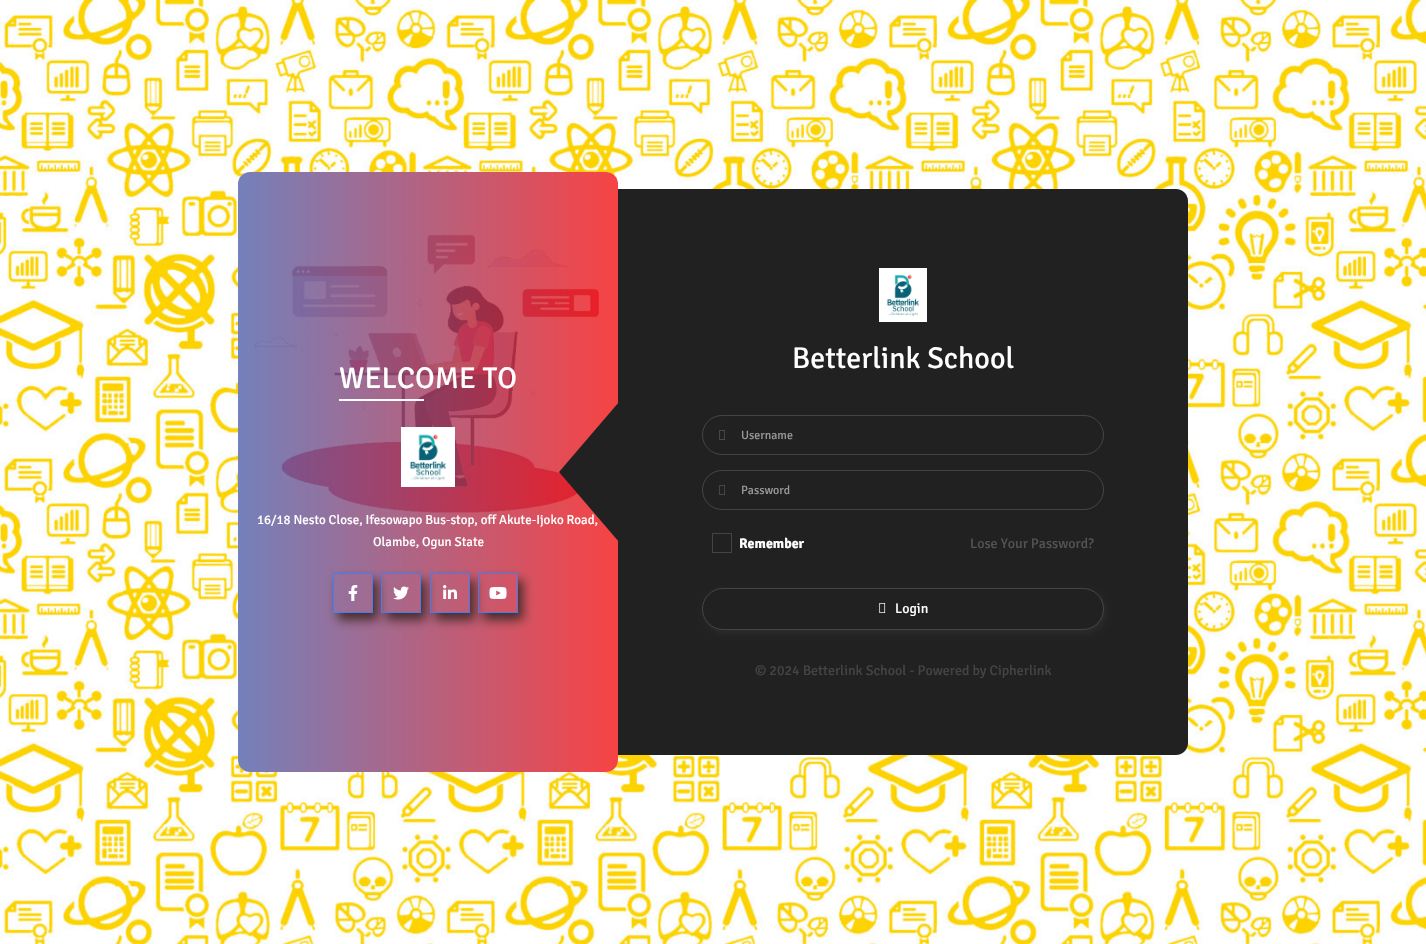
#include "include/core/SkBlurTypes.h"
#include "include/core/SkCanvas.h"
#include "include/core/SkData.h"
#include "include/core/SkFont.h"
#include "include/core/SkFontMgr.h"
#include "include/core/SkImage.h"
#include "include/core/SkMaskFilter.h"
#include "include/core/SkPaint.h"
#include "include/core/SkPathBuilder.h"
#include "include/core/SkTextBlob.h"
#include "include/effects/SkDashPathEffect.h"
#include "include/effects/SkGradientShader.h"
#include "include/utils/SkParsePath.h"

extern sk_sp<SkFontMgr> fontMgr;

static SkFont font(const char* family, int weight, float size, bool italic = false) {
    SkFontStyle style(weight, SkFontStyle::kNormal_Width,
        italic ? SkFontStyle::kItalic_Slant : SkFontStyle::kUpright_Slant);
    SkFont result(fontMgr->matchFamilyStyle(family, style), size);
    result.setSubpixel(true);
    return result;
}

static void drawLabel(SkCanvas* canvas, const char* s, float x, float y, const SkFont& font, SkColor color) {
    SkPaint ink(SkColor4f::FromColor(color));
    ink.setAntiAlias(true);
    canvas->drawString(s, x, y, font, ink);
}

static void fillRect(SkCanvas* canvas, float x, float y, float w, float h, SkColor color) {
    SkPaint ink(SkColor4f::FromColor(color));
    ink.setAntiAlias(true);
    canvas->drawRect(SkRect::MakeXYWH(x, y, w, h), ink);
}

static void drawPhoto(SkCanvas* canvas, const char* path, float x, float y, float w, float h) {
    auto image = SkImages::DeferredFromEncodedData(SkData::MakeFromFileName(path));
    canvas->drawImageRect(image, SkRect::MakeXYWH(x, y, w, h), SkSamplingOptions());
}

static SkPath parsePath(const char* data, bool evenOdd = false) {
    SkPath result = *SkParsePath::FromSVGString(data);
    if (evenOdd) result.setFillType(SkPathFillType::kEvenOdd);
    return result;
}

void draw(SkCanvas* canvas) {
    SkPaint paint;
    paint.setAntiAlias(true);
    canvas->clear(0xFFFFFFFF);
    drawPhoto(canvas, "assets/img1.png", 0, 0, 1426, 944);
    drawPhoto(canvas, "assets/img2.png", 238, 172, 380, 600);
    {
        const SkColor colors[] = {0xCC5061AB, 0xCCF51414};
        const float stops[] = {0, 1};
        const SkPoint ends[] = {{238, 472}, {618, 472}};
        paint.setShader(SkGradientShader::MakeLinear(ends, colors, stops, 2, SkTileMode::kClamp));
        paint.setAlpha(255);
    }
    canvas->drawRoundRect(SkRect::MakeXYWH(238, 172, 380, 600), 12, 12, paint);
    SkFont font1 = font("Signika", 400, 30);
    drawLabel(canvas, "WELCOME TO", 339, 388, font1, 0xFFFFFFFF);
    fillRect(canvas, 339, 399, 85, 2, 0xFFFFFFFF);
    drawPhoto(canvas, "assets/img3.png", 401, 427, 54, 60);
    SkFont font2 = font("Signika", 400, 13);
    drawLabel(canvas, "16/18 Nesto Close, Ifesowapo Bus-stop, off Akute-Ijoko Road,", 257, 524, font2, 0xFFFFFFFF);
    drawLabel(canvas, "Olambe, Ogun State", 373, 546, font2, 0xFFFFFFFF);
    canvas->save();
    canvas->clipPath(parsePath("M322 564H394V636H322ZM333 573H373V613H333Z", true), true);
    paint.setShader(nullptr);
    paint.setColor(0xFF482C2C);
    paint.setMaskFilter(SkMaskFilter::MakeBlur(kNormal_SkBlurStyle, 5));
    canvas->drawRect(SkRect::MakeXYWH(338, 580, 40, 40), paint);
    paint.setMaskFilter(nullptr);
    canvas->restore();
    paint.setStroke(true);
    paint.setStrokeWidth(1);
    paint.setColor(0xFF437DF3);
    canvas->drawRect(SkRect::MakeXYWH(333.5f, 573.5f, 39, 39), paint);
    drawPhoto(canvas, "assets/img4.png", 348, 585, 10, 16);
    canvas->save();
    canvas->clipPath(parsePath("M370 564H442V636H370ZM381 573H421V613H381Z", true), true);
    paint.setStroke(false);
    paint.setColor(0xFF482C2C);
    paint.setMaskFilter(SkMaskFilter::MakeBlur(kNormal_SkBlurStyle, 5));
    canvas->drawRect(SkRect::MakeXYWH(386, 580, 40, 40), paint);
    paint.setMaskFilter(nullptr);
    canvas->restore();
    paint.setStroke(true);
    paint.setColor(0xFF437DF3);
    canvas->drawRect(SkRect::MakeXYWH(381.5f, 573.5f, 39, 39), paint);
    drawPhoto(canvas, "assets/img5.png", 393, 586, 16, 14);
    canvas->save();
    canvas->clipPath(parsePath("M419 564H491V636H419ZM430 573H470V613H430Z", true), true);
    paint.setStroke(false);
    paint.setColor(0xFF482C2C);
    paint.setMaskFilter(SkMaskFilter::MakeBlur(kNormal_SkBlurStyle, 5));
    canvas->drawRect(SkRect::MakeXYWH(435, 580, 40, 40), paint);
    paint.setMaskFilter(nullptr);
    canvas->restore();
    paint.setStroke(true);
    paint.setColor(0xFF437DF3);
    canvas->drawRect(SkRect::MakeXYWH(430.5f, 573.5f, 39, 39), paint);
    drawPhoto(canvas, "assets/img6.png", 443, 585, 14, 14);
    canvas->save();
    canvas->clipPath(parsePath("M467 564H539V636H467ZM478 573H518V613H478Z", true), true);
    paint.setStroke(false);
    paint.setColor(0xFF482C2C);
    paint.setMaskFilter(SkMaskFilter::MakeBlur(kNormal_SkBlurStyle, 5));
    canvas->drawRect(SkRect::MakeXYWH(483, 580, 40, 40), paint);
    paint.setMaskFilter(nullptr);
    canvas->restore();
    paint.setStroke(true);
    paint.setColor(0xFF437DF3);
    canvas->drawRect(SkRect::MakeXYWH(478.5f, 573.5f, 39, 39), paint);
    drawPhoto(canvas, "assets/img7.png", 489, 587, 18, 12);
    paint.setStroke(false);
    paint.setColor(0xFF212121);
    canvas->drawPath(parsePath("M618 189H1176C1182.5 189 1188 194.5 1188 201V743C1188 749.5 1182.5 755 1176 755H618Z"), paint);
    drawPhoto(canvas, "assets/img8.png", 879, 268, 48, 54);
    drawLabel(canvas, "Betterlink School", 792, 368, font1, 0xFFFFFFFF);
    canvas->drawPath(parsePath("M619 402V542L559 472Z"), paint);
    paint.setStroke(true);
    paint.setColor(0xFF444444);
    canvas->drawRoundRect(SkRect::MakeXYWH(702.5f, 415.5f, 401, 39), 19.5f, 19.5f, paint);
    drawPhoto(canvas, "assets/img9.png", 719, 430, 6, 10);
    SkFont font3 = font("Signika", 400, 12);
    drawLabel(canvas, "Username", 741, 439, font3, 0xFF999999);
    canvas->drawRoundRect(SkRect::MakeXYWH(702.5f, 470.5f, 401, 39), 19.5f, 19.5f, paint);
    drawPhoto(canvas, "assets/img9.png", 719, 485, 6, 10);
    drawLabel(canvas, "Password", 741, 494, font3, 0xFF999999);
    canvas->drawRect(SkRect::MakeXYWH(712.5f, 533.5f, 19, 19), paint);
    SkFont font4 = font("Signika", 700, 14);
    drawLabel(canvas, "Remember", 739, 548, font4, 0xFFFFFFFF);
    SkFont font5 = font("Signika", 400, 14);
    drawLabel(canvas, "Lose Your Password?", 970, 548, font5, 0xFF535353);
    paint.setStroke(false);
    paint.setColor(0xFF2C2C2C);
    paint.setMaskFilter(SkMaskFilter::MakeBlur(kNormal_SkBlurStyle, 3));
    canvas->drawRoundRect(SkRect::MakeXYWH(704, 591, 402, 42), 21, 21, paint);
    paint.setMaskFilter(nullptr);
    paint.setColor(0xFF212121);
    canvas->drawRoundRect(SkRect::MakeXYWH(702.5f, 588.5f, 401, 41), 20.5f, 20.5f, paint);
    paint.setStroke(true);
    paint.setColor(0xFF444444);
    canvas->drawRoundRect(SkRect::MakeXYWH(702.5f, 588.5f, 401, 41), 20.5f, 20.5f, paint);
    drawPhoto(canvas, "assets/img10.png", 879, 603, 7, 10);
    drawLabel(canvas, "Login", 895, 613, font5, 0xFFFFFFFF);
    drawLabel(canvas, "© 2024 Betterlink School - Powered by Cipherlink", 755, 675, font5, 0xFF444444);
}
